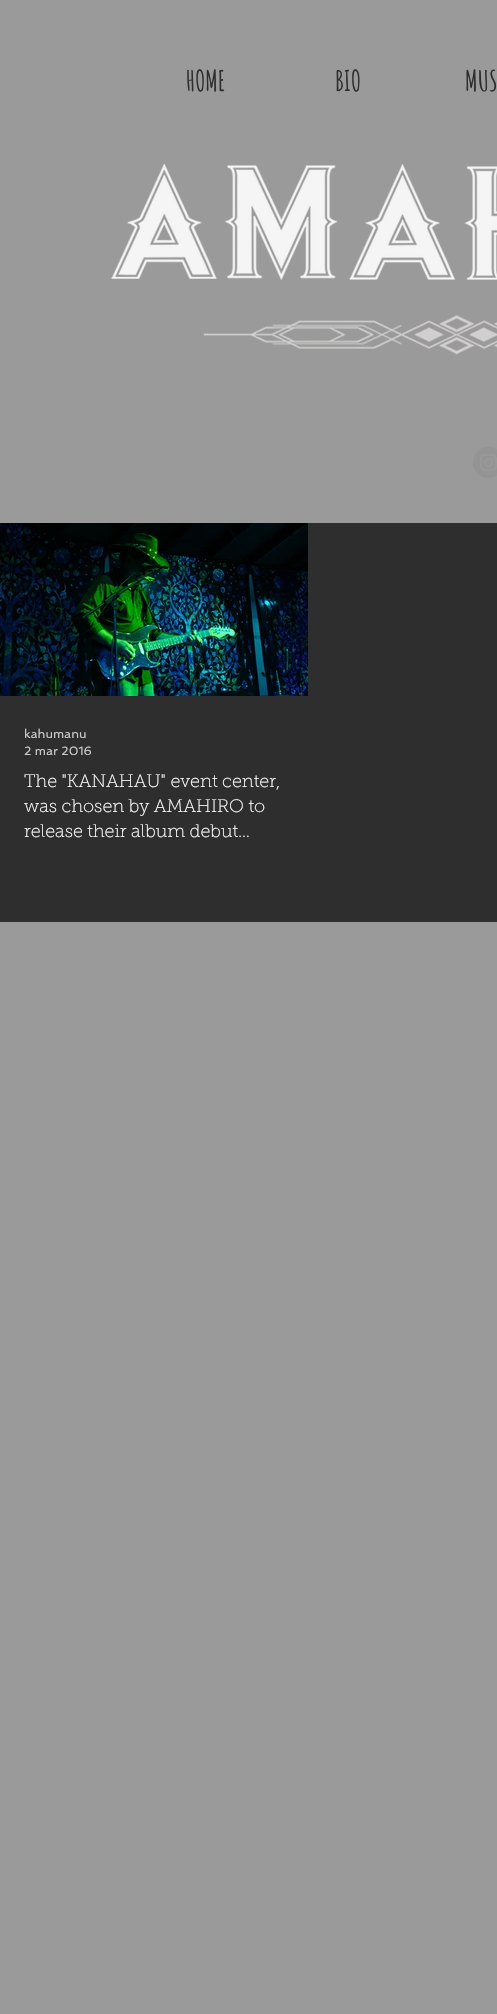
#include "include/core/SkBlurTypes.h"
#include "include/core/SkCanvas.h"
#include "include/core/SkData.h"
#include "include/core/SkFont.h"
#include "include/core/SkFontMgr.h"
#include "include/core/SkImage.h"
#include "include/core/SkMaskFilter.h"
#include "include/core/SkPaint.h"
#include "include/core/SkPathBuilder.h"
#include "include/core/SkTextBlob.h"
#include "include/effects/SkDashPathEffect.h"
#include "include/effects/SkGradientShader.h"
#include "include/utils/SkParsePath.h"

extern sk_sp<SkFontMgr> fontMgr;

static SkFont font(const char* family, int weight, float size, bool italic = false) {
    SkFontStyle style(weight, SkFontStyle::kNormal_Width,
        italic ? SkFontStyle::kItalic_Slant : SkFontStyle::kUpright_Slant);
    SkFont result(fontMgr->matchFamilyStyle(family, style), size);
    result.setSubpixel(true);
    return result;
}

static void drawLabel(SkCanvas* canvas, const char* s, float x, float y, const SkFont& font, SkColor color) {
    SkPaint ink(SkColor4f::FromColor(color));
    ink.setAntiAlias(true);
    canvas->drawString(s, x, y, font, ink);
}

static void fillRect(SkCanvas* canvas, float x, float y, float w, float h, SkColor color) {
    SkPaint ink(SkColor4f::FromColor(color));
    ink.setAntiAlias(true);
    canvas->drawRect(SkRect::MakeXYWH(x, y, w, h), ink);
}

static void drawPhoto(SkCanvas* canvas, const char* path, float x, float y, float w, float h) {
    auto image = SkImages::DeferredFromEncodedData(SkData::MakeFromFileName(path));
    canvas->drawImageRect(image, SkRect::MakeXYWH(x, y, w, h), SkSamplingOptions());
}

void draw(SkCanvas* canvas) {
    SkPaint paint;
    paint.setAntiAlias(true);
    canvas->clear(0xFF9A9A9A);
    SkFont font1 = font("Amatic SC", 700, 28);
    drawLabel(canvas, "HOME", 186, 91, font1, 0xFF2F2E2E);
    drawLabel(canvas, "BIO", 335, 91, font1, 0xFF2F2E2E);
    drawLabel(canvas, "MUS", 465, 91, font1, 0xFF2F2E2E);
    drawPhoto(canvas, "assets/img1.png", 111, 164, 386, 116);
    drawPhoto(canvas, "assets/img2.png", 203, 315, 294, 40);
    drawPhoto(canvas, "assets/img3.png", 473, 447, 24, 31);
    fillRect(canvas, 0, 523, 497, 399, 0xFF2F2E2E);
    drawPhoto(canvas, "assets/img4.png", 0, 523, 308, 173);
    SkFont font2 = font("Spinnaker", 400, 12);
    drawLabel(canvas, "kahumanu", 24, 738, font2, 0xFFCCCCCC);
    drawLabel(canvas, "2 mar 2016", 24, 755, font2, 0xFFCCCCCC);
    SkFont font3 = font("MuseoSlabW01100", 100, 18);
    drawLabel(canvas, "The \"KANAHAU\" event center,", 24, 787, font3, 0xFFFFFFFF);
    drawLabel(canvas, "was chosen by AMAHIRO to", 24, 812, font3, 0xFFFFFFFF);
    drawLabel(canvas, "release their album debut…", 24, 837, font3, 0xFFFFFFFF);
}
